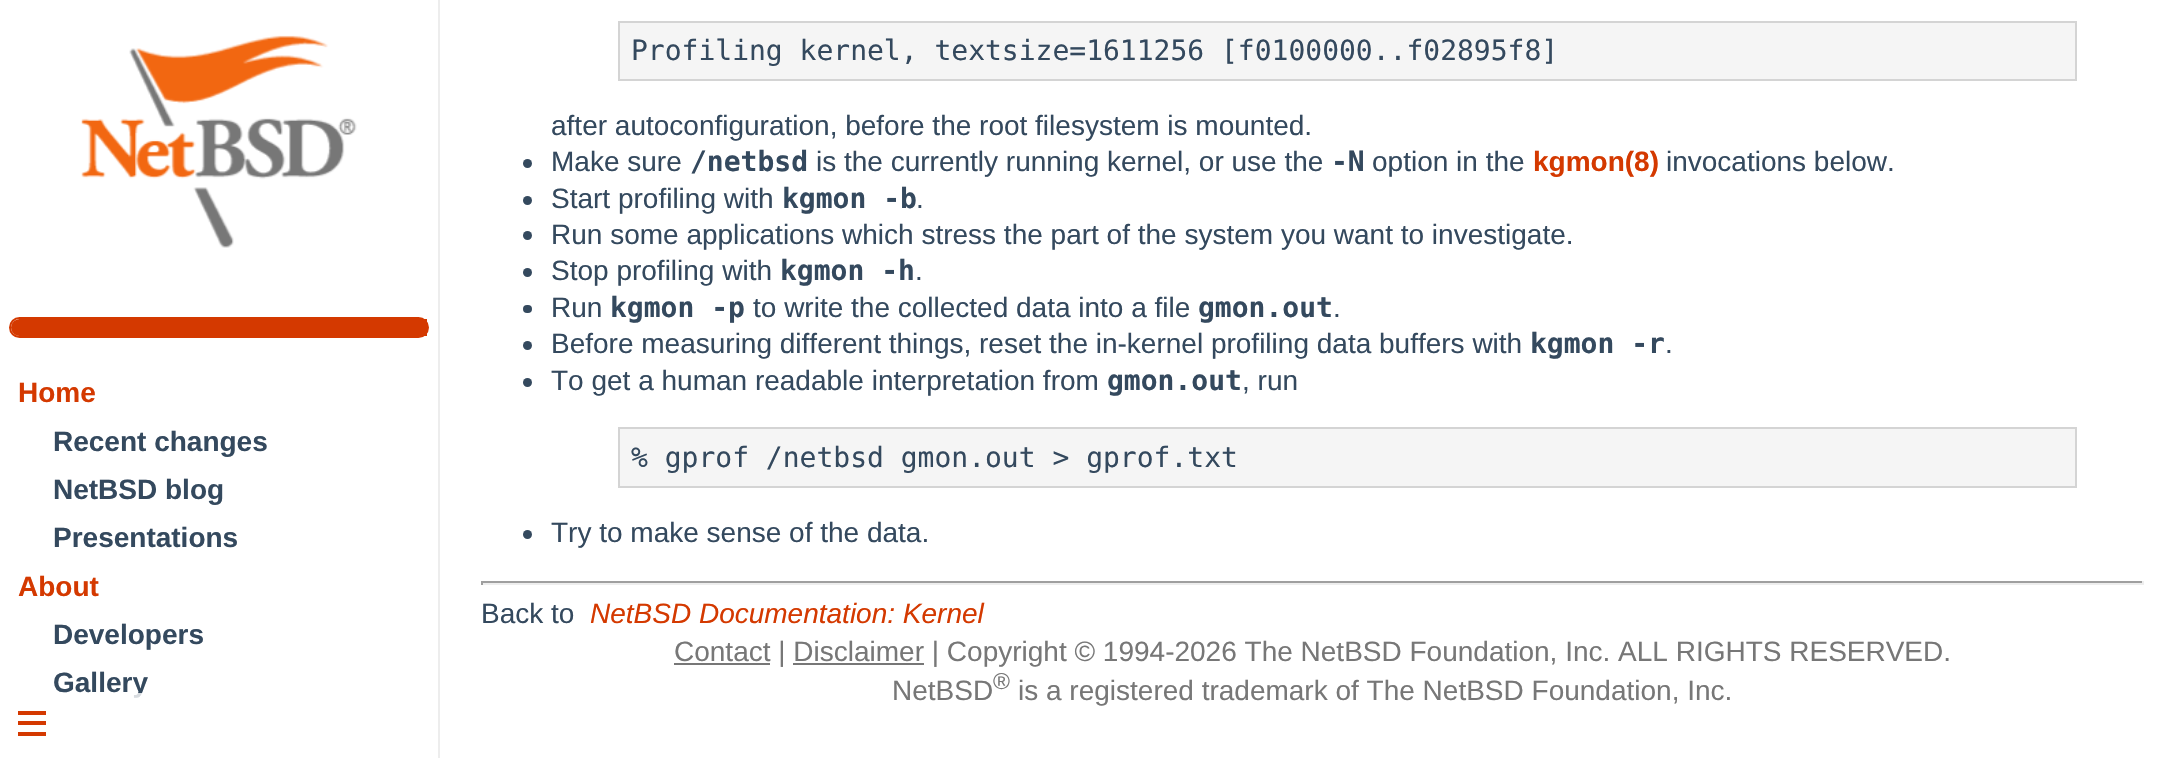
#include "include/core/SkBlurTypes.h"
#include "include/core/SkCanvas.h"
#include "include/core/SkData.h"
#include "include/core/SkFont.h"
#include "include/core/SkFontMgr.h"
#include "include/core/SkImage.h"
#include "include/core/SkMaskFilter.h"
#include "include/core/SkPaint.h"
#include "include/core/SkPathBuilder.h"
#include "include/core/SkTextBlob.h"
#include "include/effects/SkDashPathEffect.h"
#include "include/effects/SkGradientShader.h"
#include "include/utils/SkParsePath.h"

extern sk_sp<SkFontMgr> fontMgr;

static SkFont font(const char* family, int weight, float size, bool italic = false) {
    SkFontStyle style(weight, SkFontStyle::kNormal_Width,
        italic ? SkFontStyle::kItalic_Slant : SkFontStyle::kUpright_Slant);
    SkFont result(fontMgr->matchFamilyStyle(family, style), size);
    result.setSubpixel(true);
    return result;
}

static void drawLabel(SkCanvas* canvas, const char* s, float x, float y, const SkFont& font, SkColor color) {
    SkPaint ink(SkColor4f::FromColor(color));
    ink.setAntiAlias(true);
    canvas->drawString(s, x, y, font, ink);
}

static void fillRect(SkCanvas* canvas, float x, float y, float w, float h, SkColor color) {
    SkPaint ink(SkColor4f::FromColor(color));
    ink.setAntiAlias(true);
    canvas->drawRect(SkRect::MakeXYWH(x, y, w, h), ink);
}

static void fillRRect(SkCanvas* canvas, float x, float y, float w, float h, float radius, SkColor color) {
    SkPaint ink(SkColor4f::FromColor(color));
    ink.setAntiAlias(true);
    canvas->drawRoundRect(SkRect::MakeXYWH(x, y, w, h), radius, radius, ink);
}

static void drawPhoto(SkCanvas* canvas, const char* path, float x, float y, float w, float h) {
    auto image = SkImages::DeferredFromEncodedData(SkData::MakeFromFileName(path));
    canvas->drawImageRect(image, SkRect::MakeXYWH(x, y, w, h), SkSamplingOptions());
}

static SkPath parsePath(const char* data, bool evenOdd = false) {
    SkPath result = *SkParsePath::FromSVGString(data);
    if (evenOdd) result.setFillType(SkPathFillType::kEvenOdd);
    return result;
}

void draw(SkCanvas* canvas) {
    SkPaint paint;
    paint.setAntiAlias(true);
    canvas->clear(0xFFFFFFFF);
    fillRect(canvas, 438, 0, 2, 758, 0xFFEDEDED);
    drawPhoto(canvas, "assets/img1.png", 81, 35, 276, 213);
    paint.setStroke(true);
    paint.setStrokeWidth(2);
    paint.setColor(0xFFD43900);
    canvas->drawRoundRect(SkRect::MakeXYWH(10, 318, 418, 19), 9.5f, 9.5f, paint);
    paint.setStroke(false);
    canvas->drawPath(parsePath("M19.5 320H426V335H19.5C15.5 335 12 331.5 12 327.5C12 323.5 15.5 320 19.5 320Z"), paint);
    paint.setStroke(true);
    canvas->drawPath(parsePath("M19.5 320H426V335H19.5C15.5 335 12 331.5 12 327.5C12 323.5 15.5 320 19.5 320Z"), paint);
    SkFont font1 = font("Liberation Sans", 700, 28);
    drawLabel(canvas, "Home", 18, 402, font1, 0xFFD43900);
    drawLabel(canvas, "Recent changes", 53, 451, font1, 0xFF34495E);
    drawLabel(canvas, "NetBSD blog", 53, 499, font1, 0xFF34495E);
    drawLabel(canvas, "Presentations", 53, 547, font1, 0xFF34495E);
    drawLabel(canvas, "About", 18, 596, font1, 0xFFD43900);
    drawLabel(canvas, "Developers", 53, 644, font1, 0xFF34495E);
    drawLabel(canvas, "Gallery", 53, 692, font1, 0xFF34495E);
    paint.setStroke(false);
    paint.setColor(0xFFF5F5F5);
    canvas->drawRect(SkRect::MakeXYWH(619, 22, 1457, 58), paint);
    paint.setStroke(true);
    paint.setColor(0xFFD4D4D4);
    canvas->drawRect(SkRect::MakeXYWH(619, 22, 1457, 58), paint);
    SkFont font2 = font("DejaVu Sans Mono", 400, 28);
    drawLabel(canvas, "Profiling kernel, textsize=1611256 [f0100000..f02895f8]", 631, 60, font2, 0xFF34495E);
    SkFont font3 = font("Liberation Sans", 400, 28);
    drawLabel(canvas, "after autoconfiguration, before the root filesystem is mounted.", 551, 135, font3, 0xFF34495E);
    paint.setStroke(false);
    paint.setColor(0xFF34495E);
    canvas->drawCircle(527.5f, 163.5f, 4.5f, paint);
    drawLabel(canvas, "Make sure", 551, 171, font3, 0xFF34495E);
    SkFont font4 = font("DejaVu Sans Mono", 700, 28);
    drawLabel(canvas, "/netbsd", 690, 171, font4, 0xFF34495E);
    drawLabel(canvas, "is the currently running kernel, or use the", 816, 171, font3, 0xFF34495E);
    drawLabel(canvas, "-N", 1331, 171, font4, 0xFF34495E);
    drawLabel(canvas, "option in the", 1372, 171, font3, 0xFF34495E);
    drawLabel(canvas, "kgmon(8)", 1533, 171, font1, 0xFFD43900);
    drawLabel(canvas, "invocations below.", 1666, 171, font3, 0xFF34495E);
    canvas->drawCircle(527.5f, 200.5f, 4.5f, paint);
    drawLabel(canvas, "Start profiling with", 551, 208, font3, 0xFF34495E);
    drawLabel(canvas, "kgmon -b", 782, 208, font4, 0xFF34495E);
    drawLabel(canvas, ".", 916, 208, font3, 0xFF34495E);
    canvas->drawCircle(527.5f, 235.5f, 4.5f, paint);
    drawLabel(canvas, "Run some applications which stress the part of the system you want to investigate.", 551, 244, font3, 0xFF34495E);
    canvas->drawCircle(527.5f, 272.5f, 4.5f, paint);
    drawLabel(canvas, "Stop profiling with", 551, 280, font3, 0xFF34495E);
    drawLabel(canvas, "kgmon -h", 780, 280, font4, 0xFF34495E);
    drawLabel(canvas, ".", 915, 280, font3, 0xFF34495E);
    fillRRect(canvas, 523, 305, 9, 8, 4, 0xFF34495E);
    drawLabel(canvas, "Run", 551, 317, font3, 0xFF34495E);
    drawLabel(canvas, "kgmon -p", 610, 317, font4, 0xFF34495E);
    drawLabel(canvas, "to write the collected data into a file", 753, 317, font3, 0xFF34495E);
    drawLabel(canvas, "gmon.out", 1198, 317, font4, 0xFF34495E);
    drawLabel(canvas, ".", 1333, 317, font3, 0xFF34495E);
    canvas->drawCircle(527.5f, 345.5f, 4.5f, paint);
    drawLabel(canvas, "Before measuring different things, reset the in-kernel profiling data buffers with", 551, 353, font3, 0xFF34495E);
    drawLabel(canvas, "kgmon -r", 1530, 353, font4, 0xFF34495E);
    drawLabel(canvas, ".", 1665, 353, font3, 0xFF34495E);
    canvas->drawCircle(527.5f, 382.5f, 4.5f, paint);
    drawLabel(canvas, "To get a human readable interpretation from", 551, 390, font3, 0xFF34495E);
    drawLabel(canvas, "gmon.out", 1107, 390, font4, 0xFF34495E);
    drawLabel(canvas, ", run", 1242, 390, font3, 0xFF34495E);
    paint.setColor(0xFFF5F5F5);
    canvas->drawRect(SkRect::MakeXYWH(619, 428, 1457, 59), paint);
    paint.setStroke(true);
    paint.setColor(0xFFD4D4D4);
    canvas->drawRect(SkRect::MakeXYWH(619, 428, 1457, 59), paint);
    drawLabel(canvas, "% gprof /netbsd gmon.out > gprof.txt", 631, 467, font2, 0xFF34495E);
    paint.setStroke(false);
    paint.setColor(0xFF34495E);
    canvas->drawCircle(527.5f, 534.5f, 4.5f, paint);
    drawLabel(canvas, "Try to make sense of the data.", 551, 542, font3, 0xFF34495E);
    fillRect(canvas, 481, 581, 1663, 2, 0xFF9F9F9F);
    fillRect(canvas, 2142, 581, 2, 4, 0xFFEEEEEE);
    fillRect(canvas, 481, 583, 1663, 2, 0xFFEEEEEE);
    fillRect(canvas, 481, 581, 2, 4, 0xFF9F9F9F);
    drawLabel(canvas, "Back to", 481, 623, font3, 0xFF34495E);
    SkFont font5 = font("Liberation Sans", 400, 28, true);
    drawLabel(canvas, "NetBSD Documentation: Kernel", 590, 623, font5, 0xFFD43900);
    fillRect(canvas, 674, 663, 96, 2, 0xFF777777);
    drawLabel(canvas, "Contact | Disclaimer | Copyright © 1994-2026 The NetBSD Foundation, Inc. ALL RIGHTS RESERVED.", 674, 661, font3, 0xFF777777);
    drawLabel(canvas, "NetBSD", 892, 700, font3, 0xFF777777);
    fillRect(canvas, 793, 663, 131, 2, 0xFF777777);
    SkFont font6 = font("Liberation Sans", 400, 23);
    drawLabel(canvas, "®", 993, 689, font6, 0xFF777777);
    drawLabel(canvas, "is a registered trademark of The NetBSD Foundation, Inc.", 1018, 700, font3, 0xFF777777);
    fillRect(canvas, 133, 693, 9, 5, 0xCCFFFFFF);
    fillRect(canvas, 18, 711, 28, 4, 0xFFD43900);
    fillRect(canvas, 18, 721, 28, 4, 0xFFD43900);
    fillRect(canvas, 18, 732, 28, 4, 0xFFD43900);
}
